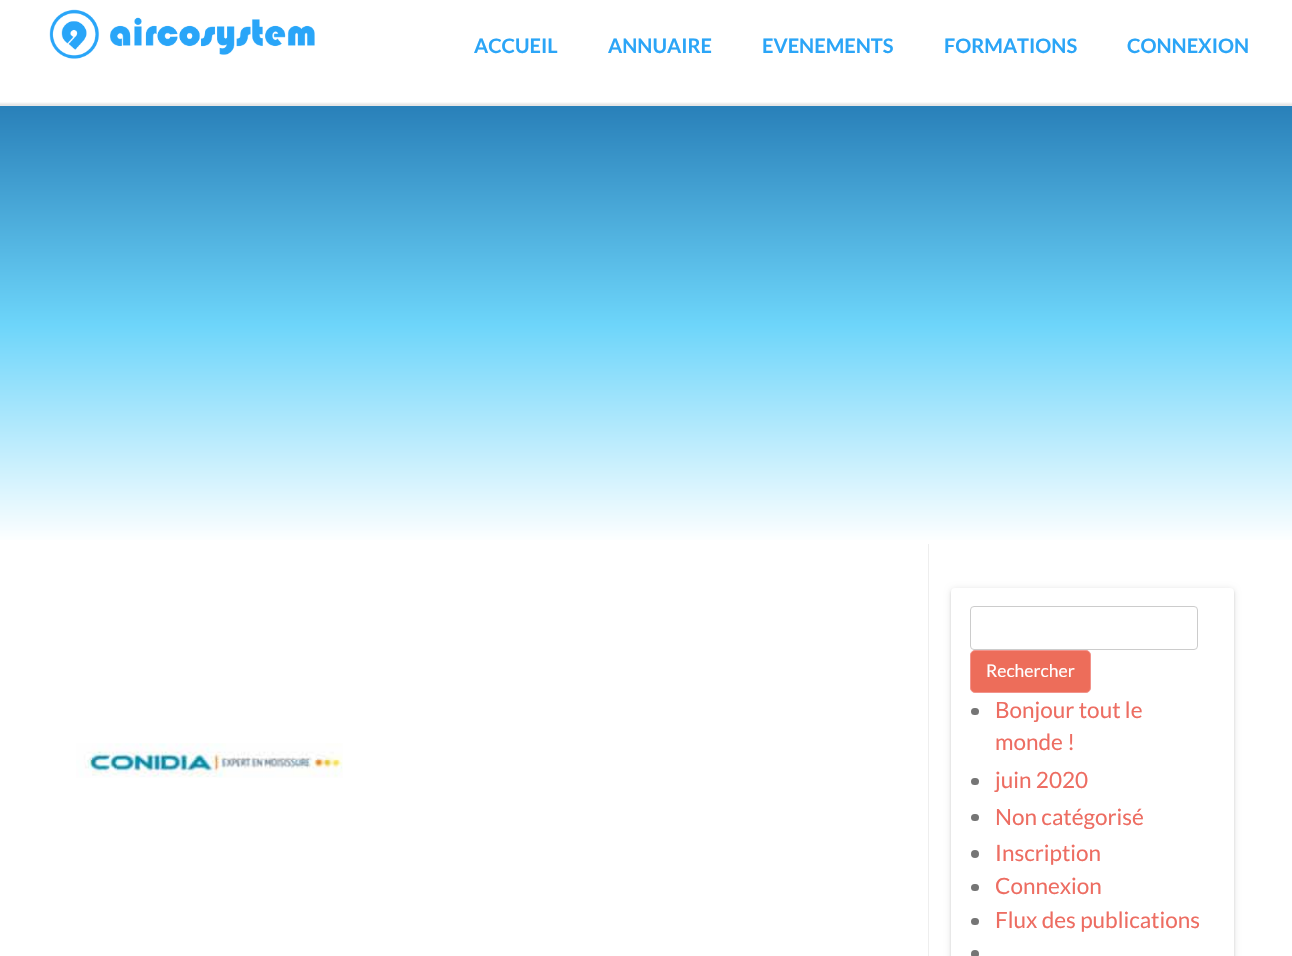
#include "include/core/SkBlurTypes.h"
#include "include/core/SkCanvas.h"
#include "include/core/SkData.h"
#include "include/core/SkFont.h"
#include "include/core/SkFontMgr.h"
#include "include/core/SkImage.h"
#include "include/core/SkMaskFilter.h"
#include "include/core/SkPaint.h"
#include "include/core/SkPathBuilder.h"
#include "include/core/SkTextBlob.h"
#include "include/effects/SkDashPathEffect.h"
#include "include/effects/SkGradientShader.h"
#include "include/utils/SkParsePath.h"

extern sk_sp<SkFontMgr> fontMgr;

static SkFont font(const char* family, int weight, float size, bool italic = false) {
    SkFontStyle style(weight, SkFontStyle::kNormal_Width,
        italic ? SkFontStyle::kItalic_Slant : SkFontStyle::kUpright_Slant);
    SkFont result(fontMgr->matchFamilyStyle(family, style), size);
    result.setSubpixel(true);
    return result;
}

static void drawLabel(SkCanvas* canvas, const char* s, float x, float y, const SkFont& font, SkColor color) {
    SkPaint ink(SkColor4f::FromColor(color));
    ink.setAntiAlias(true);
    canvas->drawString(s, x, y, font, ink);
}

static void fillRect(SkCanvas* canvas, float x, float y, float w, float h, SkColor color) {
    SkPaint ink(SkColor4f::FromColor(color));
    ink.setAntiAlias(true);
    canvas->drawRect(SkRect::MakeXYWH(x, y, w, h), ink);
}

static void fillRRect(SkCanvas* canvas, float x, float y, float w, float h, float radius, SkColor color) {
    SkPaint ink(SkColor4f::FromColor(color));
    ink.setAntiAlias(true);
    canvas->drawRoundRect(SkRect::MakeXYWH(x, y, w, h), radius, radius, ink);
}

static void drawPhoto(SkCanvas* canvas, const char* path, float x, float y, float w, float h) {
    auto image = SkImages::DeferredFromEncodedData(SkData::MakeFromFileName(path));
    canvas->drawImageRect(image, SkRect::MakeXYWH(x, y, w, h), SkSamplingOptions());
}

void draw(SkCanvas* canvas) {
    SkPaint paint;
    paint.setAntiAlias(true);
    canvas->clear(0xFFFFFFFF);
    drawPhoto(canvas, "assets/img1.png", 0, 102, 1292, 4);
    drawPhoto(canvas, "assets/img2.png", 49, 9, 266, 50);
    SkFont font1 = font("Lato", 700, 20);
    drawLabel(canvas, "ACCUEIL", 474, 53, font1, 0xFF2BA5F7);
    drawLabel(canvas, "ANNUAIRE", 608, 53, font1, 0xFF2BA5F7);
    drawLabel(canvas, "EVENEMENTS", 762, 53, font1, 0xFF2BA5F7);
    drawLabel(canvas, "FORMATIONS", 944, 53, font1, 0xFF2BA5F7);
    drawLabel(canvas, "CONNEXION", 1127, 53, font1, 0xFF2BA5F7);
    {
        const SkColor colors[] = {0xFFFFFFFF, 0xFF6DD5FA, 0xFF2980B9};
        const float stops[] = {0, 0.5f, 1};
        const SkPoint ends[] = {{646, 544}, {646, 106}};
        paint.setShader(SkGradientShader::MakeLinear(ends, colors, stops, 3, SkTileMode::kClamp));
        paint.setAlpha(255);
    }
    canvas->drawRect(SkRect::MakeXYWH(0, 106, 1292, 434), paint);
    fillRect(canvas, 928, 544, 1, 412, 0xFFEEEEEE);
    drawPhoto(canvas, "assets/img3.png", 76, 743, 267, 35);
    paint.setShader(nullptr);
    paint.setColor(0x1F000000);
    paint.setMaskFilter(SkMaskFilter::MakeBlur(kNormal_SkBlurStyle, 3));
    canvas->drawRoundRect(SkRect::MakeXYWH(951, 589, 283, 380), 4, 4, paint);
    paint.setMaskFilter(nullptr);
    paint.setColor(0x24000000);
    paint.setMaskFilter(SkMaskFilter::MakeBlur(kNormal_SkBlurStyle, 1));
    canvas->drawRoundRect(SkRect::MakeXYWH(951, 590, 283, 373), 4, 4, paint);
    paint.setMaskFilter(nullptr);
    fillRRect(canvas, 951, 588, 283, 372, 4, 0xFFFFFFFF);
    paint.setStroke(true);
    paint.setStrokeWidth(1);
    paint.setColor(0xFFCCCCCC);
    canvas->drawRoundRect(SkRect::MakeXYWH(970.5f, 606.5f, 227, 43), 3.5f, 3.5f, paint);
    paint.setStroke(false);
    paint.setColor(0xFFED6D5A);
    canvas->drawRoundRect(SkRect::MakeXYWH(970.5f, 650.5f, 120, 42), 4.5f, 4.5f, paint);
    paint.setStroke(true);
    paint.setColor(0xFFF2938B);
    canvas->drawRoundRect(SkRect::MakeXYWH(970.5f, 650.5f, 120, 42), 4.5f, 4.5f, paint);
    SkFont font2 = font("Lato", 400, 17.5f);
    drawLabel(canvas, "Rechercher", 986, 677, font2, 0xFFFFFFFF);
    fillRRect(canvas, 971, 708, 8, 7, 3.5f, 0xFF757575);
    SkFont font3 = font("Lato", 400, 22.5f);
    drawLabel(canvas, "Bonjour tout le", 995, 718, font3, 0xFFED6D62);
    drawLabel(canvas, "monde !", 995, 750, font3, 0xFFED6D62);
    fillRRect(canvas, 971, 778, 8, 7, 3.5f, 0xFF757575);
    drawLabel(canvas, "juin 2020", 995, 788, font3, 0xFFED6D62);
    fillRRect(canvas, 971, 814, 8, 7, 3.5f, 0xFF757575);
    drawLabel(canvas, "Non catégorisé", 995, 825, font3, 0xFFED6D62);
    paint.setStroke(false);
    paint.setColor(0xFF757575);
    canvas->drawCircle(975, 854, 4, paint);
    drawLabel(canvas, "Inscription", 995, 861, font3, 0xFFED6D62);
    fillRRect(canvas, 971, 884, 8, 7, 3.5f, 0xFF757575);
    drawLabel(canvas, "Connexion", 995, 894, font3, 0xFFED6D62);
    fillRRect(canvas, 971, 918, 8, 7, 3.5f, 0xFF757575);
    drawLabel(canvas, "Flux des publications", 995, 928, font3, 0xFFED6D62);
    canvas->drawCircle(975, 954, 4, paint);
}
